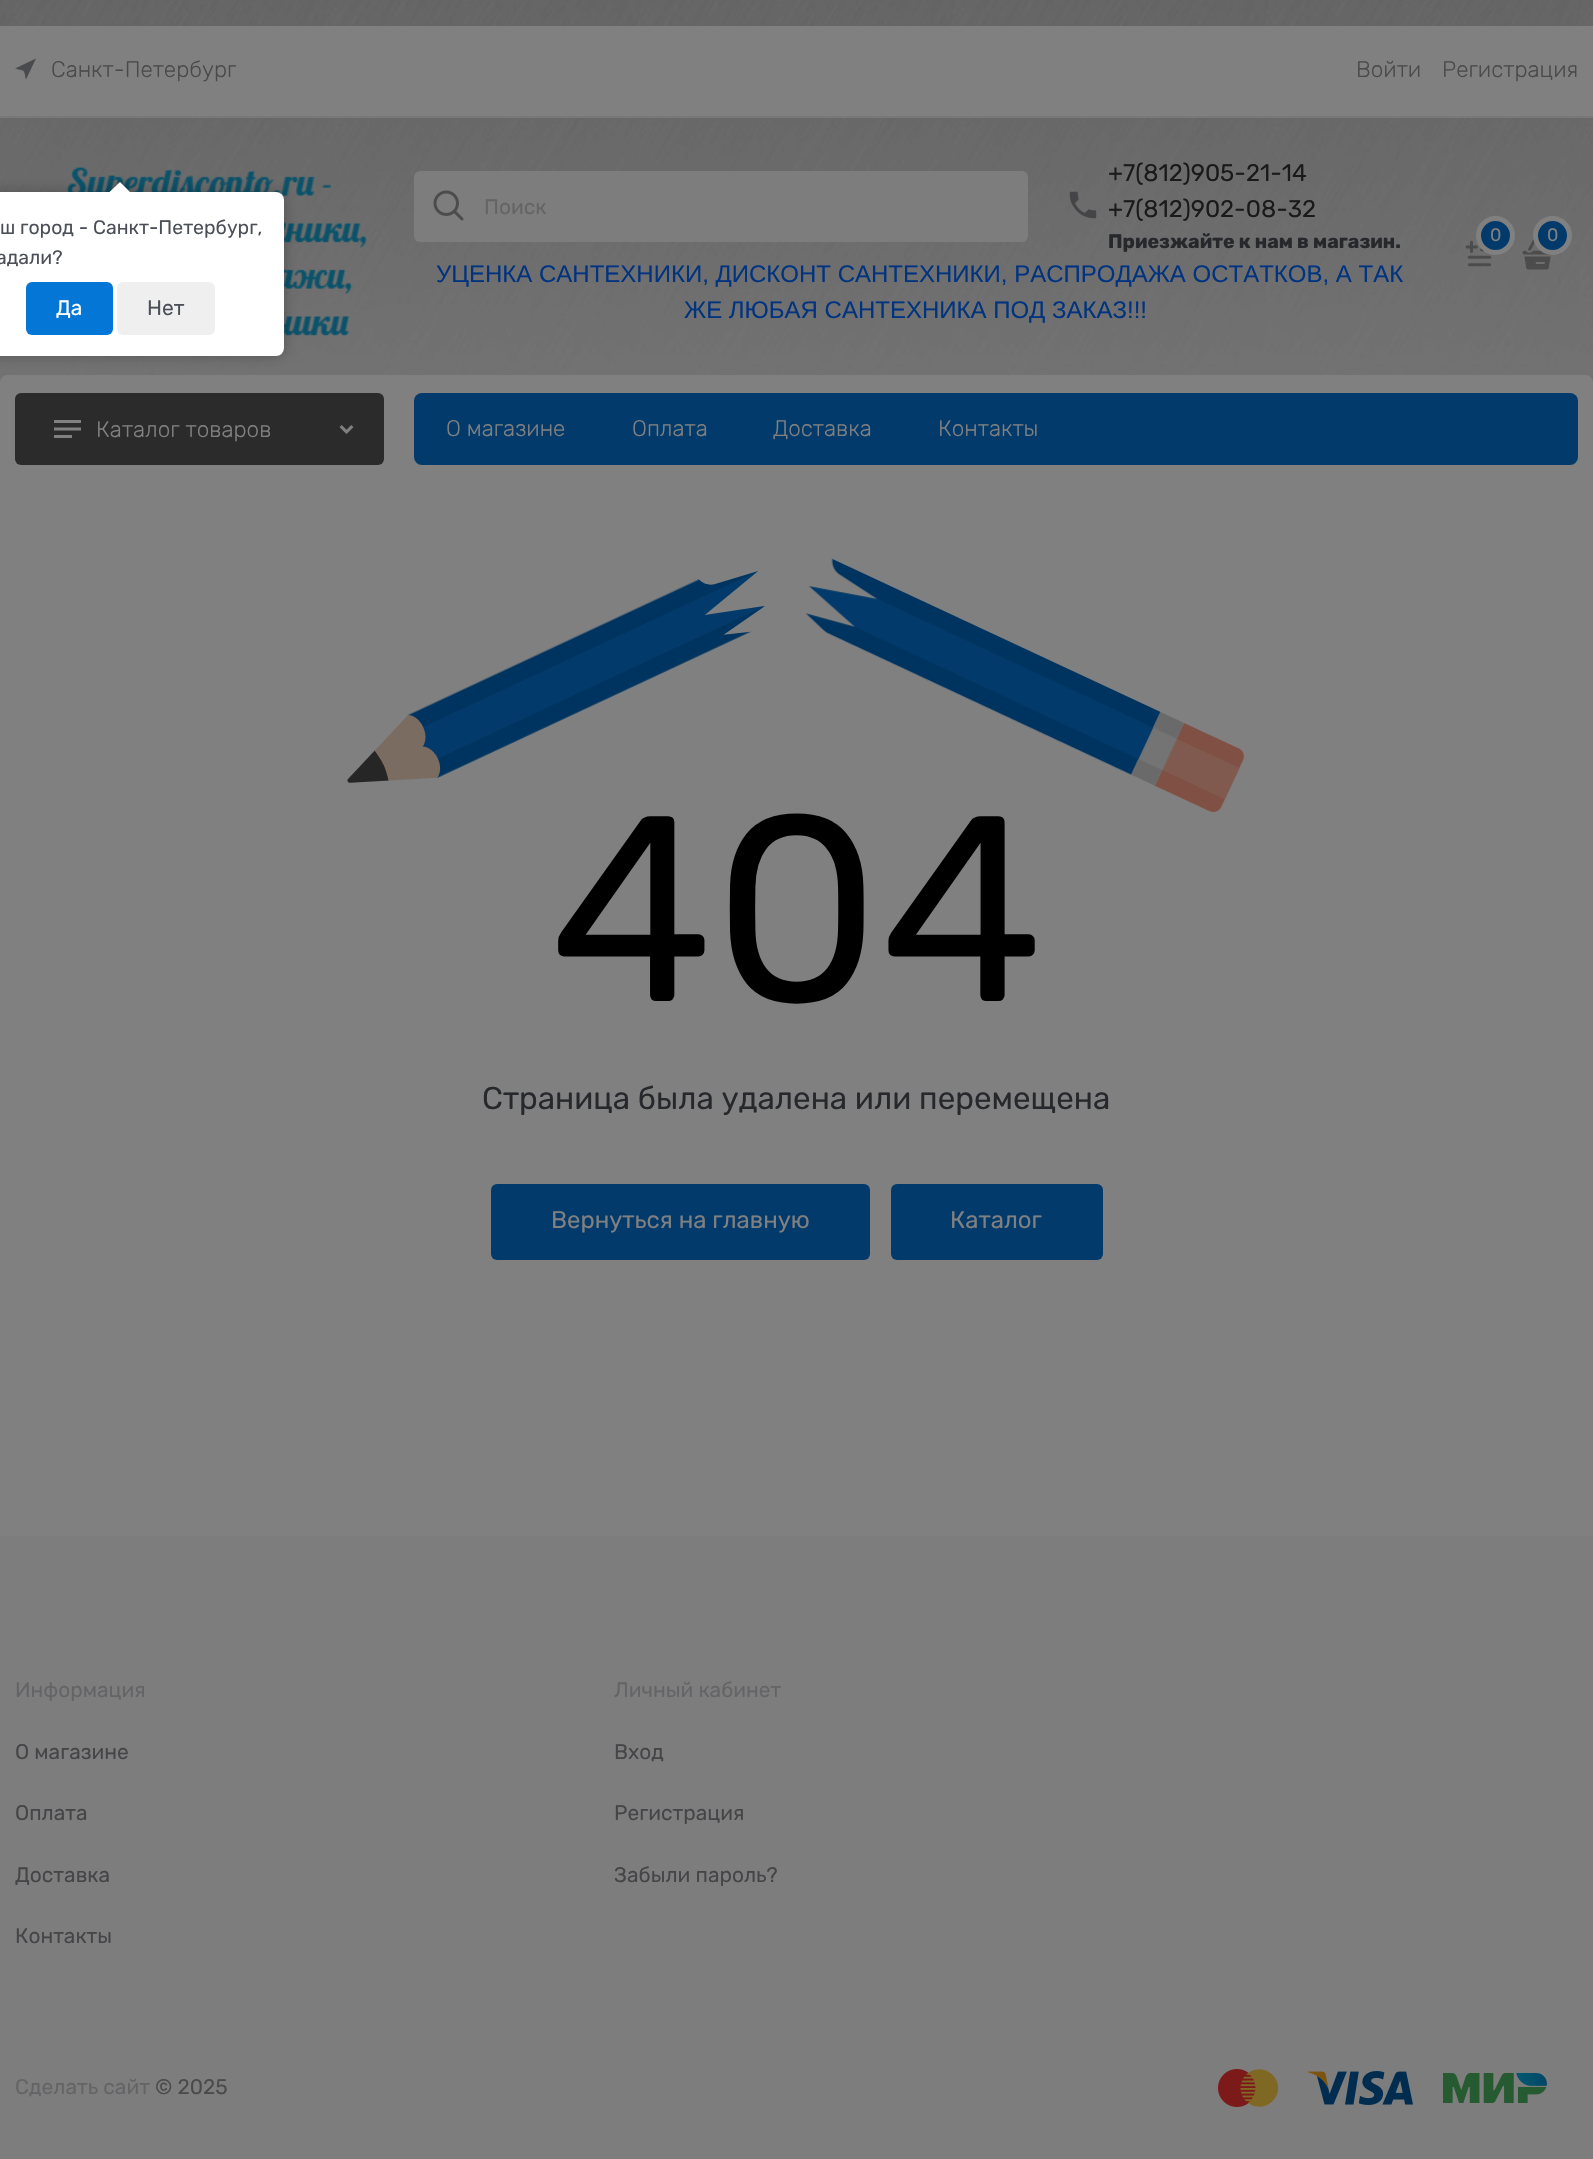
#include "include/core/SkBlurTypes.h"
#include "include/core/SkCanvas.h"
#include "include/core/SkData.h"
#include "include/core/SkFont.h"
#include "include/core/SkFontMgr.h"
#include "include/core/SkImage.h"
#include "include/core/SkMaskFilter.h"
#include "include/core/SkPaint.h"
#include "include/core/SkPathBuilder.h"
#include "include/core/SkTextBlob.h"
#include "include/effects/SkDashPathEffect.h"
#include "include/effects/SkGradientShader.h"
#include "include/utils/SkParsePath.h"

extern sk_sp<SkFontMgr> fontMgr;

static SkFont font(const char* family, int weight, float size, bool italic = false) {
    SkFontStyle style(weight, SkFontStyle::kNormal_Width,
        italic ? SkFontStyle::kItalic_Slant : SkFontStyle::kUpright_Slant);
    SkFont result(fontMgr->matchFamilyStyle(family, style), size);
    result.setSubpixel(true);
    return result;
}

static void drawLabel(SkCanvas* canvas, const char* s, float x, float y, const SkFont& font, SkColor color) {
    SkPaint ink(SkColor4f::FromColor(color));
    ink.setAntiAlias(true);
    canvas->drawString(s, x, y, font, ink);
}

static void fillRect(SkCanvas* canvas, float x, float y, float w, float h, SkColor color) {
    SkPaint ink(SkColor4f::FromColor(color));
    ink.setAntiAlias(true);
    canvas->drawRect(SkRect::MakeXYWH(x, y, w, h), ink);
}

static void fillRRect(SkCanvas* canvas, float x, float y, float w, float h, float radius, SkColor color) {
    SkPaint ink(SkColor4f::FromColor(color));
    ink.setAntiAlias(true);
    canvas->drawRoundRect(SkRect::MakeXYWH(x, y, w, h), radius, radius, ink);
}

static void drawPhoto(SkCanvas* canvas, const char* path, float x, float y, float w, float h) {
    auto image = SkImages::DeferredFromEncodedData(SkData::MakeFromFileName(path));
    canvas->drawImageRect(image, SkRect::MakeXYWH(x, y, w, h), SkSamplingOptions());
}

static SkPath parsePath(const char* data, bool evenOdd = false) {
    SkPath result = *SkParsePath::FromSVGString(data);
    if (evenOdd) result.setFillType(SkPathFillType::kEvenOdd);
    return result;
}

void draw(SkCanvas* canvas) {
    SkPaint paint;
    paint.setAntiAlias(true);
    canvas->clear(0xFF808080);
    drawPhoto(canvas, "assets/img1.png", 0, 0, 1593, 383);
    fillRect(canvas, 0, 26, 1593, 90, 0xFF808080);
    fillRect(canvas, 0, 116, 1593, 2, 0xFF78787A);
    paint.setColor(0xFF4A4B4E);
    canvas->drawPath(parsePath("M15 68.5C26 71.5 23.5 69 26 79.5L36 58.5Z"), paint);
    SkFont font1 = font("Rubik", 300, 22.5f);
    drawLabel(canvas, "Санкт-Петербург", 51, 77, font1, 0xFF4B4A4A);
    drawLabel(canvas, "Войти", 1356, 77, font1, 0xFF4B4A4A);
    drawLabel(canvas, "Регистрация", 1442, 77, font1, 0xFF4B4A4A);
    drawPhoto(canvas, "assets/img2.png", 66, 167, 301, 169);
    fillRRect(canvas, 414, 171, 614, 71, 6, 0xFF7D7D7D);
    drawPhoto(canvas, "assets/img3.png", 433, 190, 31, 31);
    SkFont font2 = font("Rubik", 400, 21);
    drawLabel(canvas, "Поиск", 484, 214, font2, 0xFF646466);
    drawPhoto(canvas, "assets/img4.png", 1069, 191, 28, 28);
    SkFont font3 = font("Rubik", 400, 24);
    drawLabel(canvas, "+7(812)905-21-14", 1108, 181, font3, 0xFF1A1A1A);
    drawLabel(canvas, "+7(812)902-08-32", 1108, 217, font3, 0xFF1A1A1A);
    SkFont font4 = font("Rubik", 700, 19.5f);
    drawLabel(canvas, "Приезжайте к нам в магазин.", 1108, 248, font4, 0xFF26282C);
    SkFont font5 = font("Liberation Sans", 400, 24);
    drawLabel(canvas, "УЦЕНКА САНТЕХНИКИ, ДИСКОНТ САНТЕХНИКИ, РАСПРОДАЖА ОСТАТКОВ, А ТАК", 436, 282, font5, 0xFF003380);
    drawLabel(canvas, "ЖЕ ЛЮБАЯ САНТЕХНИКА ПОД ЗАКАЗ!!!", 684, 318, font5, 0xFF003380);
    drawPhoto(canvas, "assets/img5.png", 1465, 240, 27, 27);
    paint.setColor(0xFF023B6B);
    canvas->drawCircle(1495.5f, 235.5f, 17, paint);
    paint.setStroke(true);
    paint.setStrokeWidth(5);
    paint.setColor(0xFF808080);
    canvas->drawCircle(1495.5f, 235.5f, 17, paint);
    SkFont font6 = font("Rubik", 400, 18);
    drawLabel(canvas, "0", 1490, 241, font6, 0xFF808080);
    drawPhoto(canvas, "assets/img6.png", 1522, 239, 30, 31);
    paint.setStroke(false);
    paint.setColor(0xFF023B6B);
    canvas->drawCircle(1552.5f, 235.5f, 17, paint);
    paint.setStroke(true);
    paint.setColor(0xFF808080);
    canvas->drawCircle(1552.5f, 235.5f, 17, paint);
    drawLabel(canvas, "0", 1547, 241, font6, 0xFF808080);
    paint.setStroke(false);
    canvas->drawPath(parsePath("M8 375H1585C1589.5 375 1593 378.5 1593 383V483H0V383C0 378.5 3.5 375 8 375Z"), paint);
    fillRRect(canvas, 15, 393, 369, 72, 6, 0xFF2A2B2A);
    drawPhoto(canvas, "assets/img7.png", 54, 420, 27, 18);
    drawLabel(canvas, "Каталог товаров", 96, 437, font1, 0xFF808080);
    drawPhoto(canvas, "assets/img8.png", 339, 425, 15, 9);
    fillRRect(canvas, 414, 393, 1164, 72, 8, 0xFF023B6B);
    drawLabel(canvas, "О магазине", 446, 436, font1, 0xFF808080);
    drawLabel(canvas, "Оплата", 632, 436, font1, 0xFF808080);
    drawLabel(canvas, "Доставка", 773, 436, font1, 0xFF808080);
    drawLabel(canvas, "Контакты", 938, 436, font1, 0xFF808080);
    drawPhoto(canvas, "assets/img9.png", 347, 558, 898, 254);
    SkFont font7 = font("Rubik", 400, 264);
    drawLabel(canvas, "404", 550, 1001, font7, 0xFF000000);
    SkFont font8 = font("Rubik", 400, 31.5f);
    drawLabel(canvas, "Страница была удалена или перемещена", 482, 1109, font8, 0xFF26282C);
    fillRRect(canvas, 491, 1184, 379, 76, 6, 0xFF023B6B);
    drawLabel(canvas, "Вернуться на главную", 551, 1228, font3, 0xFF808080);
    fillRRect(canvas, 891, 1184, 212, 76, 6, 0xFF023B6B);
    drawLabel(canvas, "Каталог", 950, 1228, font3, 0xFF808080);
    fillRect(canvas, 0, 1536, 1593, 623, 0xFF7D7D7D);
    drawLabel(canvas, "Информация", 15, 1697, font2, 0xFF646466);
    drawLabel(canvas, "О магазине", 15, 1759, font2, 0xFF454548);
    drawLabel(canvas, "Оплата", 15, 1820, font2, 0xFF454548);
    drawLabel(canvas, "Доставка", 15, 1882, font2, 0xFF454548);
    drawLabel(canvas, "Контакты", 15, 1943, font2, 0xFF454548);
    drawLabel(canvas, "Личный кабинет", 614, 1697, font2, 0xFF646466);
    drawLabel(canvas, "Вход", 614, 1759, font2, 0xFF454548);
    drawLabel(canvas, "Регистрация", 614, 1820, font2, 0xFF454548);
    drawLabel(canvas, "Забыли пароль?", 614, 1882, font2, 0xFF454548);
    drawLabel(canvas, "Сделать сайт", 15, 2094, font2, 0xFF646466);
    drawLabel(canvas, "© 2025", 155, 2094, font2, 0xFF4B4A4A);
    drawPhoto(canvas, "assets/img10.png", 1218, 2069, 60, 38);
    drawPhoto(canvas, "assets/img11.png", 1308, 2071, 105, 34);
    drawPhoto(canvas, "assets/img12.png", 1443, 2073, 104, 30);
    paint.setColor(0x40000000);
    paint.setMaskFilter(SkMaskFilter::MakeBlur(kNormal_SkBlurStyle, 7));
    canvas->drawRoundRect(SkRect::MakeXYWH(-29, 192, 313, 164), 8, 8, paint);
    paint.setMaskFilter(nullptr);
    fillRRect(canvas, -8, 192, 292, 164, 8, 0xFFFFFFFF);
    canvas->save();
    canvas->clipRect(SkRect::MakeXYWH(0, 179, 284, 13));
    paint.setMaskFilter(SkMaskFilter::MakeBlur(kNormal_SkBlurStyle, 7));
    canvas->drawRect(SkRect::MakeXYWH(113, 185, 15, 15), paint);
    paint.setMaskFilter(nullptr);
    canvas->restore();
    canvas->save();
    canvas->clipRect(SkRect::MakeXYWH(0, 179, 284, 13));
    paint.setColor(0xFFFFFFFF);
    canvas->drawPath(parsePath("M120 182L130.5 192.5L120 203L109 192.5Z"), paint);
    canvas->restore();
    SkFont font9 = font("Rubik", 400, 19.5f);
    drawLabel(canvas, "ш город - Санкт-Петербург,", 0, 234, font9, 0xFF4B4F58);
    drawLabel(canvas, "адали?", -4, 264, font9, 0xFF4B4F58);
    fillRRect(canvas, 26, 282, 87, 53, 6, 0xFF0476D6);
    drawLabel(canvas, "Да", 56, 315, font2, 0xFFFFFFFF);
    fillRRect(canvas, 117, 282, 98, 53, 6, 0xFFEFEFEF);
    drawLabel(canvas, "Нет", 147, 315, font2, 0xFF4B4F58);
}
